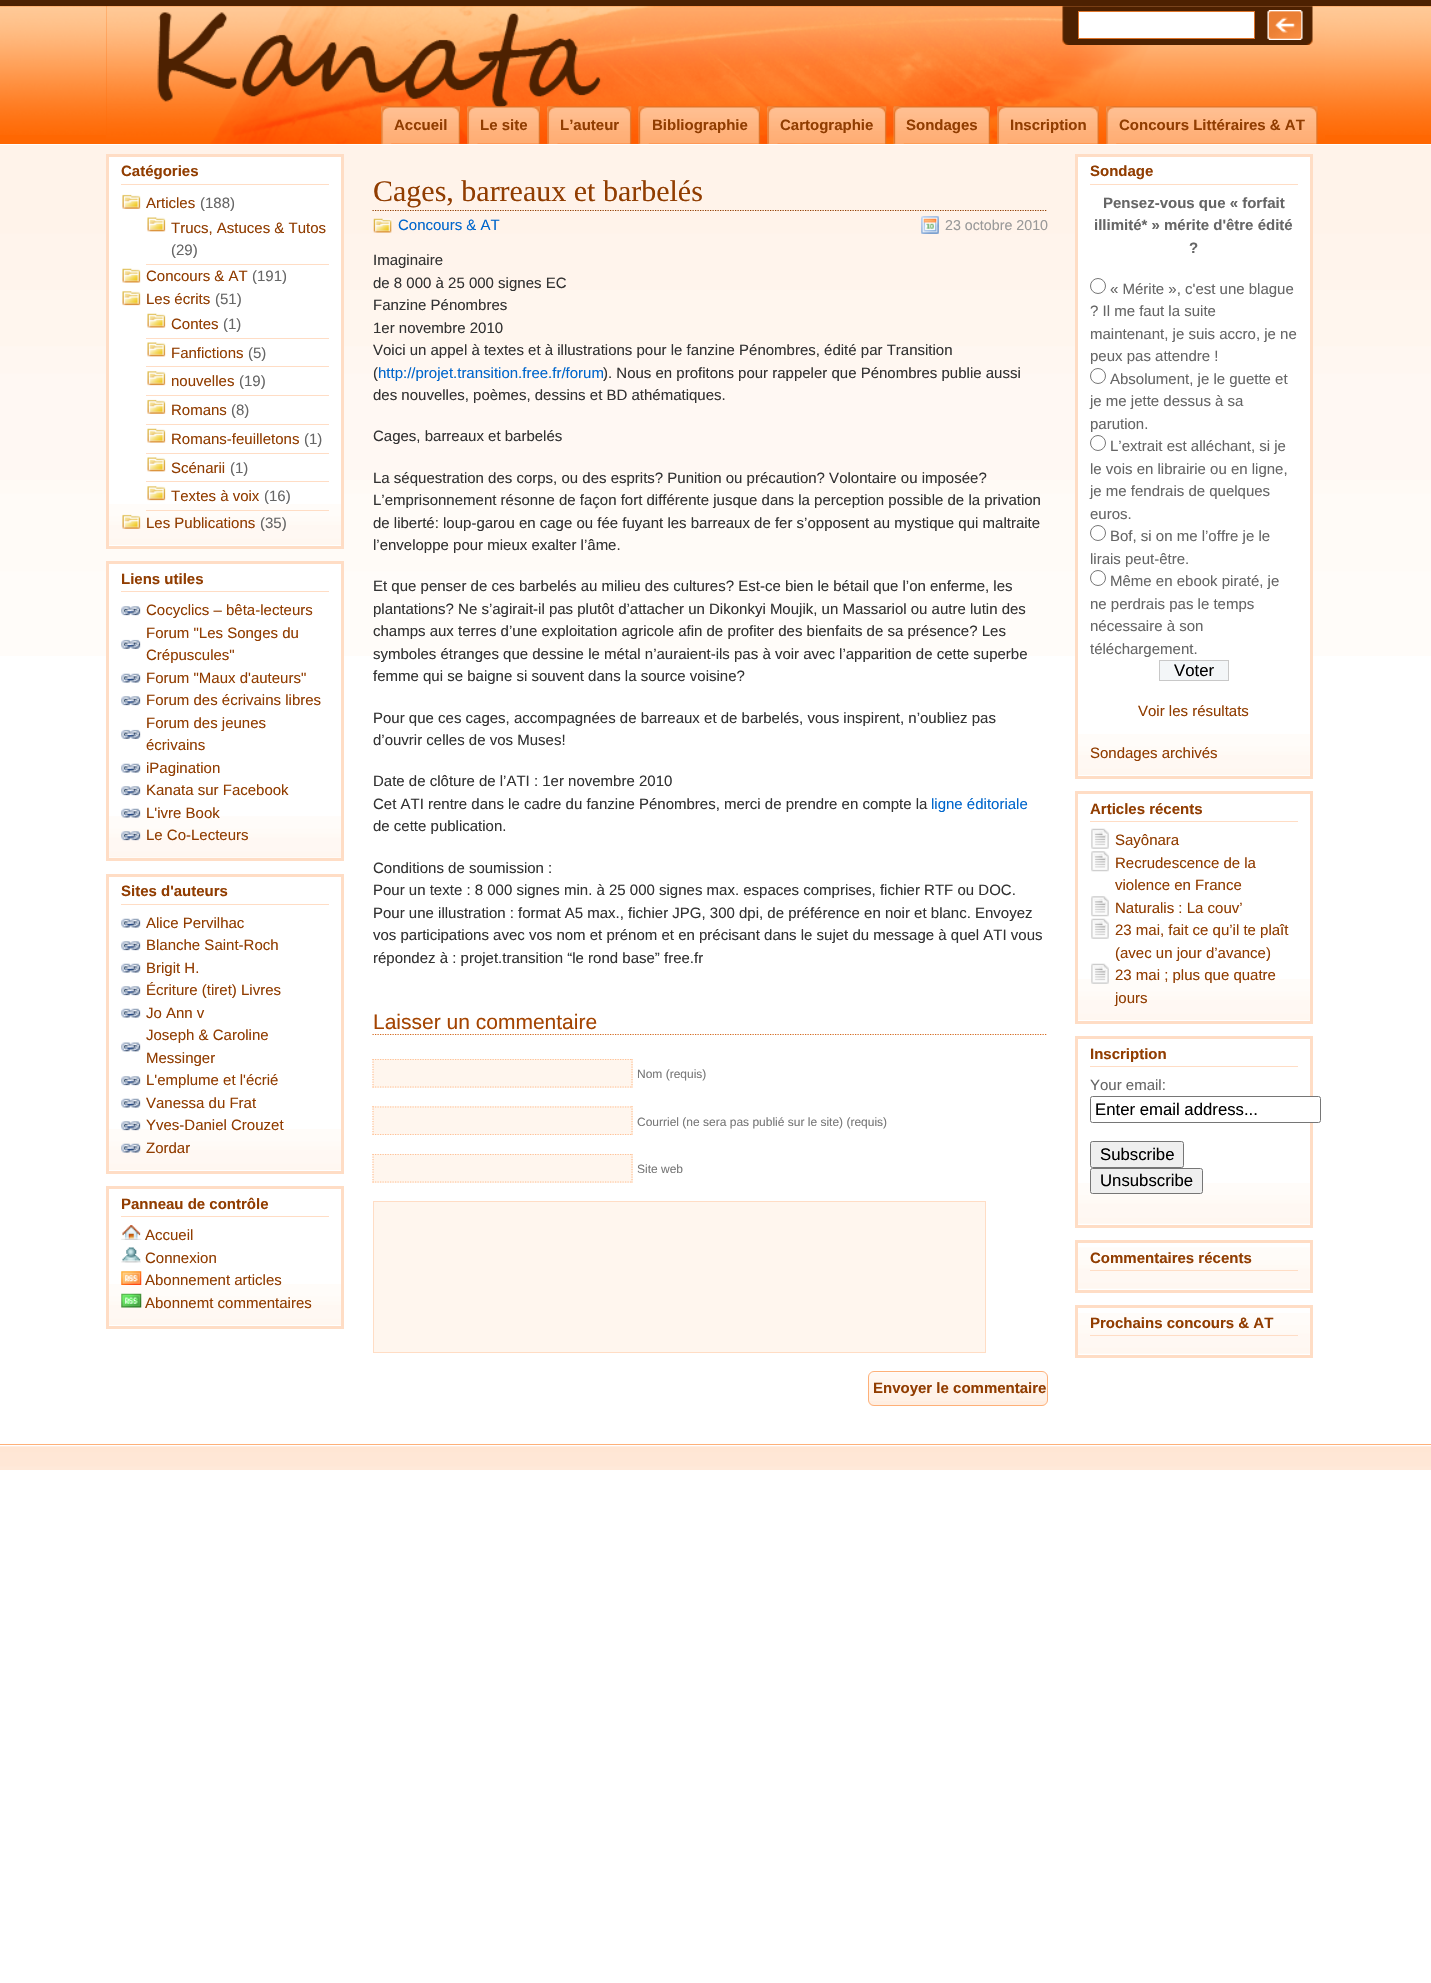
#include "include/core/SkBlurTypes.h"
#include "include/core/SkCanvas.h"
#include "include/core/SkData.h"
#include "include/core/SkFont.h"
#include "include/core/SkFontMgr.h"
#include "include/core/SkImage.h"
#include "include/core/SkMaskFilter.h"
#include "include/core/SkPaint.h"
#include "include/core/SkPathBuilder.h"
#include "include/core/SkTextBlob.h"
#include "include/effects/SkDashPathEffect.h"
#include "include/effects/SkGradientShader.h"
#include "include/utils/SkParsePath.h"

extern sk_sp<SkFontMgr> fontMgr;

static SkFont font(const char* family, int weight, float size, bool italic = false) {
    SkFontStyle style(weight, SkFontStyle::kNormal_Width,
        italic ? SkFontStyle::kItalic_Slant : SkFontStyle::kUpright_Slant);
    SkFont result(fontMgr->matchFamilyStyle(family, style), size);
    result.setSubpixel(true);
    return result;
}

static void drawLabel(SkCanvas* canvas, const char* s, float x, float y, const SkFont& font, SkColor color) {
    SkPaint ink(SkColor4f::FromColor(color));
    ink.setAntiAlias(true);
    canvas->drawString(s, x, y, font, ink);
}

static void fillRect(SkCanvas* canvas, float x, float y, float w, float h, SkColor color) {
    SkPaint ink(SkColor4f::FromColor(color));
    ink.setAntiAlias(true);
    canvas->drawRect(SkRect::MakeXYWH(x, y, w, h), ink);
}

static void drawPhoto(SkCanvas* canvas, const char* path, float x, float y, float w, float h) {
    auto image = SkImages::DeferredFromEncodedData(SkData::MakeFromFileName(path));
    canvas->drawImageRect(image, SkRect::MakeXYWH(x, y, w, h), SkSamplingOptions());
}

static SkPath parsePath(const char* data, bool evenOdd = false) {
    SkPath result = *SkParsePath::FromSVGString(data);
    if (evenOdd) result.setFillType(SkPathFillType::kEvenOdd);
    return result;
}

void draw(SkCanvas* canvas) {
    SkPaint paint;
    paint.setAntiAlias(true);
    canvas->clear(0xFFFFFFFF);
    fillRect(canvas, 0, 6, 1431, 138, 0xFFFF6702);
    drawPhoto(canvas, "assets/img1.png", 0, 6, 1431, 129);
    fillRect(canvas, 0, 0, 1431, 6, 0xFF4D2101);
    fillRect(canvas, 106, 6, 1219, 129, 0xFFFF6702);
    drawPhoto(canvas, "assets/img2.png", 106, 6, 1219, 138);
    drawPhoto(canvas, "assets/img3.png", 1062, 6, 251, 39);
    paint.setColor(0xFFFFFFFF);
    canvas->drawRect(SkRect::MakeXYWH(1078.5f, 11.5f, 176, 27), paint);
    paint.setStroke(true);
    paint.setStrokeWidth(1);
    paint.setColor(0xFFDF7429);
    canvas->drawRect(SkRect::MakeXYWH(1078.5f, 11.5f, 176, 27), paint);
    drawPhoto(canvas, "assets/img4.png", 1267, 10, 36, 30);
    drawPhoto(canvas, "assets/img5.png", 381, 106, 79, 38);
    drawPhoto(canvas, "assets/img6.png", 381, 106, 11, 38);
    SkFont font1 = font("Liberation Sans", 700, 15);
    drawLabel(canvas, "Accueil", 394, 130, font1, 0xFF913D01);
    drawPhoto(canvas, "assets/img7.png", 467, 106, 73, 38);
    drawPhoto(canvas, "assets/img8.png", 467, 106, 11, 38);
    drawLabel(canvas, "Le site", 480, 130, font1, 0xFF913D01);
    drawPhoto(canvas, "assets/img9.png", 547, 106, 85, 38);
    drawPhoto(canvas, "assets/img10.png", 547, 106, 11, 38);
    drawLabel(canvas, "L’auteur", 560, 130, font1, 0xFF913D01);
    drawPhoto(canvas, "assets/img11.png", 638, 106, 122, 38);
    drawPhoto(canvas, "assets/img12.png", 638, 106, 11, 38);
    drawLabel(canvas, "Bibliographie", 652, 130, font1, 0xFF913D01);
    drawPhoto(canvas, "assets/img13.png", 767, 106, 120, 38);
    drawPhoto(canvas, "assets/img14.png", 767, 106, 11, 38);
    drawLabel(canvas, "Cartographie", 780, 130, font1, 0xFF913D01);
    drawPhoto(canvas, "assets/img15.png", 893, 106, 97, 38);
    drawPhoto(canvas, "assets/img16.png", 893, 106, 11, 38);
    drawLabel(canvas, "Sondages", 906, 130, font1, 0xFF913D01);
    drawPhoto(canvas, "assets/img17.png", 997, 106, 102, 38);
    drawPhoto(canvas, "assets/img18.png", 997, 106, 11, 38);
    drawLabel(canvas, "Inscription", 1010, 130, font1, 0xFF913D01);
    drawPhoto(canvas, "assets/img19.png", 1106, 106, 212, 38);
    drawPhoto(canvas, "assets/img20.png", 1106, 106, 11, 38);
    drawLabel(canvas, "Concours Littéraires & AT", 1119, 130, font1, 0xFF913D01);
    drawPhoto(canvas, "assets/img21.png", 0, 145, 1431, 511);
    fillRect(canvas, 109, 157, 232, 389, 0xFFFFFFFF);
    drawPhoto(canvas, "assets/img22.png", 109, 504, 232, 41);
    paint.setStrokeWidth(3);
    paint.setColor(0xFFFFDDC5);
    canvas->drawRect(SkRect::MakeXYWH(107.5f, 155.5f, 235, 392), paint);
    fillRect(canvas, 121, 184, 208, 1, 0xFFFFDDC5);
    drawLabel(canvas, "Catégories", 121, 176, font1, 0xFF913D01);
    drawPhoto(canvas, "assets/img23.png", 122, 194, 19, 15);
    SkFont font2 = font("Liberation Sans", 400, 15);
    drawLabel(canvas, "Articles", 146, 208, font2, 0xFF913D01);
    drawLabel(canvas, "(188)", 200, 208, font2, 0xFF666666);
    drawPhoto(canvas, "assets/img24.png", 147, 217, 19, 15);
    fillRect(canvas, 146, 264, 183, 1, 0xFFFFDDC5);
    drawLabel(canvas, "Trucs, Astuces & Tutos", 171, 233, font2, 0xFF913D01);
    drawLabel(canvas, "(29)", 171, 255, font2, 0xFF666666);
    drawPhoto(canvas, "assets/img25.png", 122, 268, 19, 15);
    drawLabel(canvas, "Concours & AT", 146, 281, font2, 0xFF913D01);
    drawLabel(canvas, "(191)", 252, 281, font2, 0xFF666666);
    drawPhoto(canvas, "assets/img26.png", 122, 291, 19, 15);
    drawLabel(canvas, "Les écrits", 146, 304, font2, 0xFF913D01);
    drawLabel(canvas, "(51)", 215, 304, font2, 0xFF666666);
    drawPhoto(canvas, "assets/img25.png", 147, 313, 19, 15);
    fillRect(canvas, 146, 338, 183, 1, 0xFFFFDDC5);
    drawLabel(canvas, "Contes", 171, 329, font2, 0xFF913D01);
    drawLabel(canvas, "(1)", 223, 329, font2, 0xFF666666);
    drawPhoto(canvas, "assets/img24.png", 147, 342, 19, 15);
    fillRect(canvas, 146, 366, 183, 1, 0xFFFFDDC5);
    drawLabel(canvas, "Fanfictions", 171, 358, font2, 0xFF913D01);
    drawLabel(canvas, "(5)", 248, 358, font2, 0xFF666666);
    drawPhoto(canvas, "assets/img27.png", 147, 371, 19, 15);
    fillRect(canvas, 146, 395, 183, 1, 0xFFFFDDC5);
    drawLabel(canvas, "nouvelles", 171, 386, font2, 0xFF913D01);
    drawLabel(canvas, "(19)", 239, 386, font2, 0xFF666666);
    drawPhoto(canvas, "assets/img23.png", 147, 399, 19, 15);
    fillRect(canvas, 146, 424, 183, 1, 0xFFFFDDC5);
    drawLabel(canvas, "Romans", 171, 415, font2, 0xFF913D01);
    drawLabel(canvas, "(8)", 231, 415, font2, 0xFF666666);
    drawPhoto(canvas, "assets/img25.png", 147, 428, 19, 15);
    fillRect(canvas, 146, 453, 183, 1, 0xFFFFDDC5);
    drawLabel(canvas, "Romans-feuilletons", 171, 444, font2, 0xFF913D01);
    drawLabel(canvas, "(1)", 304, 444, font2, 0xFF666666);
    drawPhoto(canvas, "assets/img24.png", 147, 457, 19, 15);
    fillRect(canvas, 146, 481, 183, 1, 0xFFFFDDC5);
    drawLabel(canvas, "Scénarii", 171, 473, font2, 0xFF913D01);
    drawLabel(canvas, "(1)", 230, 473, font2, 0xFF666666);
    drawPhoto(canvas, "assets/img27.png", 147, 486, 19, 15);
    fillRect(canvas, 146, 510, 183, 1, 0xFFFFDDC5);
    drawLabel(canvas, "Textes à voix", 171, 501, font2, 0xFF913D01);
    drawLabel(canvas, "(16)", 264, 501, font2, 0xFF666666);
    drawPhoto(canvas, "assets/img28.png", 122, 514, 19, 15);
    drawLabel(canvas, "Les Publications", 146, 528, font2, 0xFF913D01);
    drawLabel(canvas, "(35)", 260, 528, font2, 0xFF666666);
    fillRect(canvas, 109, 564, 232, 92, 0xFFFFFFFF);
    drawPhoto(canvas, "assets/img29.png", 109, 816, 232, 42);
    canvas->drawRect(SkRect::MakeXYWH(107.5f, 562.5f, 235, 297), paint);
    fillRect(canvas, 121, 591, 208, 1, 0xFFFFDDC5);
    drawLabel(canvas, "Liens utiles", 121, 584, font1, 0xFF913D01);
    drawPhoto(canvas, "assets/img30.png", 121, 606, 20, 10);
    drawLabel(canvas, "Cocyclics – bêta-lecteurs", 146, 615, font2, 0xFF913D01);
    drawPhoto(canvas, "assets/img31.png", 121, 639, 20, 10);
    drawLabel(canvas, "Forum \"Les Songes du", 146, 638, font2, 0xFF913D01);
    drawLabel(canvas, "Crépuscules\"", 146, 660, font2, 0xFF913D01);
    drawPhoto(canvas, "assets/img32.png", 121, 673, 20, 10);
    drawLabel(canvas, "Forum \"Maux d'auteurs\"", 146, 683, font2, 0xFF913D01);
    drawPhoto(canvas, "assets/img30.png", 121, 696, 20, 10);
    drawLabel(canvas, "Forum des écrivains libres", 146, 705, font2, 0xFF913D01);
    drawPhoto(canvas, "assets/img31.png", 121, 729, 20, 10);
    drawLabel(canvas, "Forum des jeunes", 146, 728, font2, 0xFF913D01);
    drawLabel(canvas, "écrivains", 146, 750, font2, 0xFF913D01);
    drawPhoto(canvas, "assets/img32.png", 121, 763, 20, 10);
    drawLabel(canvas, "iPagination", 146, 773, font2, 0xFF913D01);
    drawPhoto(canvas, "assets/img30.png", 121, 786, 20, 10);
    drawLabel(canvas, "Kanata sur Facebook", 146, 795, font2, 0xFF913D01);
    drawPhoto(canvas, "assets/img33.png", 121, 808, 20, 10);
    drawLabel(canvas, "L'ivre Book", 146, 818, font2, 0xFF913D01);
    drawPhoto(canvas, "assets/img34.png", 121, 831, 20, 10);
    drawLabel(canvas, "Le Co-Lecteurs", 146, 840, font2, 0xFF913D01);
    drawPhoto(canvas, "assets/img22.png", 109, 1129, 232, 41);
    canvas->drawRect(SkRect::MakeXYWH(107.5f, 875.5f, 235, 297), paint);
    fillRect(canvas, 121, 904, 208, 1, 0xFFFFDDC5);
    drawLabel(canvas, "Sites d'auteurs", 121, 896, font1, 0xFF913D01);
    drawPhoto(canvas, "assets/img32.png", 121, 918, 20, 10);
    drawLabel(canvas, "Alice Pervilhac", 146, 928, font2, 0xFF913D01);
    drawPhoto(canvas, "assets/img30.png", 121, 941, 20, 10);
    drawLabel(canvas, "Blanche Saint-Roch", 146, 950, font2, 0xFF913D01);
    drawPhoto(canvas, "assets/img32.png", 121, 963, 20, 10);
    drawLabel(canvas, "Brigit H.", 146, 973, font2, 0xFF913D01);
    drawPhoto(canvas, "assets/img30.png", 121, 986, 20, 10);
    drawLabel(canvas, "Écriture (tiret) Livres", 146, 995, font2, 0xFF913D01);
    drawPhoto(canvas, "assets/img32.png", 121, 1008, 20, 10);
    drawLabel(canvas, "Jo Ann v", 146, 1018, font2, 0xFF913D01);
    drawPhoto(canvas, "assets/img35.png", 121, 1042, 20, 10);
    drawLabel(canvas, "Joseph & Caroline", 146, 1040, font2, 0xFF913D01);
    drawLabel(canvas, "Messinger", 146, 1063, font2, 0xFF913D01);
    drawPhoto(canvas, "assets/img30.png", 121, 1076, 20, 10);
    drawLabel(canvas, "L'emplume et l'écrié", 146, 1085, font2, 0xFF913D01);
    drawPhoto(canvas, "assets/img32.png", 121, 1098, 20, 10);
    drawLabel(canvas, "Vanessa du Frat", 146, 1108, font2, 0xFF913D01);
    drawPhoto(canvas, "assets/img36.png", 121, 1121, 20, 10);
    drawLabel(canvas, "Yves-Daniel Crouzet", 146, 1130, font2, 0xFF913D01);
    drawPhoto(canvas, "assets/img37.png", 121, 1143, 20, 10);
    drawLabel(canvas, "Zordar", 146, 1153, font2, 0xFF913D01);
    drawPhoto(canvas, "assets/img22.png", 109, 1284, 232, 41);
    canvas->drawRect(SkRect::MakeXYWH(107.5f, 1187.5f, 235, 140), paint);
    fillRect(canvas, 121, 1216, 208, 1, 0xFFFFDDC5);
    drawLabel(canvas, "Panneau de contrôle", 121, 1209, font1, 0xFF913D01);
    drawPhoto(canvas, "assets/img38.png", 121, 1225, 21, 15);
    drawLabel(canvas, "Accueil", 145, 1240, font2, 0xFF913D01);
    drawPhoto(canvas, "assets/img39.png", 121, 1247, 20, 16);
    drawLabel(canvas, "Connexion", 145, 1263, font2, 0xFF913D01);
    drawPhoto(canvas, "assets/img40.png", 121, 1271, 21, 14);
    drawLabel(canvas, "Abonnement articles", 145, 1285, font2, 0xFF913D01);
    drawPhoto(canvas, "assets/img41.png", 121, 1293, 21, 15);
    drawLabel(canvas, "Abonnemt commentaires", 145, 1308, font2, 0xFF913D01);
    paint.setStrokeWidth(1.2f);
    paint.setColor(0xFF913D01);
    paint.setPathEffect(SkDashPathEffect::Make({{1.25f, 1.25f}}, 0));
    canvas->drawPath(parsePath("M372.5 210.5H1047.5"), paint);
    paint.setPathEffect(nullptr);
    SkFont font3 = font("Liberation Serif", 400, 30);
    drawLabel(canvas, "Cages, barreaux et barbelés", 373, 201, font3, 0xFF913D01);
    drawPhoto(canvas, "assets/img42.png", 373, 218, 19, 15);
    drawLabel(canvas, "Concours & AT", 398, 230, font2, 0xFF0066CC);
    drawPhoto(canvas, "assets/img43.png", 921, 216, 18, 18);
    SkFont font4 = font("Liberation Sans", 400, 14.25f);
    drawLabel(canvas, "23 octobre 2010", 945, 230, font4, 0xFF999999);
    drawLabel(canvas, "Imaginaire", 373, 265, font2, 0xFF333333);
    drawLabel(canvas, "de 8 000 à 25 000 signes EC", 373, 288, font2, 0xFF333333);
    drawLabel(canvas, "Fanzine Pénombres", 373, 310, font2, 0xFF333333);
    drawLabel(canvas, "1er novembre 2010", 373, 333, font2, 0xFF333333);
    drawLabel(canvas, "Voici un appel à textes et à illustrations pour le fanzine Pénombres, édité par Transition", 373, 355, font2, 0xFF333333);
    drawLabel(canvas, "(", 373, 378, font2, 0xFF333333);
    drawLabel(canvas, "http://projet.transition.free.fr/forum", 378, 378, font2, 0xFF0066CC);
    drawLabel(canvas, "). Nous en profitons pour rappeler que Pénombres publie aussi", 603, 378, font2, 0xFF333333);
    drawLabel(canvas, "des nouvelles, poèmes, dessins et BD athématiques.", 373, 400, font2, 0xFF333333);
    drawLabel(canvas, "Cages, barreaux et barbelés", 373, 441, font2, 0xFF333333);
    drawLabel(canvas, "La séquestration des corps, ou des esprits? Punition ou précaution? Volontaire ou imposée?", 373, 483, font2, 0xFF333333);
    drawLabel(canvas, "L’emprisonnement résonne de façon fort différente jusque dans la perception possible de la privation", 373, 505, font2, 0xFF333333);
    drawLabel(canvas, "de liberté: loup-garou en cage ou fée fuyant les barreaux de fer s’opposent au mystique qui maltraite", 373, 528, font2, 0xFF333333);
    drawLabel(canvas, "l’enveloppe pour mieux exalter l’âme.", 373, 550, font2, 0xFF333333);
    drawLabel(canvas, "Et que penser de ces barbelés au milieu des cultures? Est-ce bien le bétail que l’on enferme, les", 373, 591, font2, 0xFF333333);
    drawLabel(canvas, "plantations? Ne s’agirait-il pas plutôt d’attacher un Dikonkyi Moujik, un Massariol ou autre lutin des", 373, 614, font2, 0xFF333333);
    drawLabel(canvas, "champs aux terres d’une exploitation agricole afin de profiter des bienfaits de sa présence? Les", 373, 636, font2, 0xFF333333);
    drawLabel(canvas, "symboles étranges que dessine le métal n’auraient-ils pas à voir avec l’apparition de cette superbe", 373, 659, font2, 0xFF333333);
    drawLabel(canvas, "femme qui se baigne si souvent dans la source voisine?", 373, 681, font2, 0xFF333333);
    drawLabel(canvas, "Pour que ces cages, accompagnées de barreaux et de barbelés, vous inspirent, n’oubliez pas", 373, 723, font2, 0xFF333333);
    drawLabel(canvas, "d’ouvrir celles de vos Muses!", 373, 745, font2, 0xFF333333);
    drawLabel(canvas, "Date de clôture de l’ATI : 1er novembre 2010", 373, 786, font2, 0xFF333333);
    drawLabel(canvas, "Cet ATI rentre dans le cadre du fanzine Pénombres, merci de prendre en compte la", 373, 809, font2, 0xFF333333);
    drawLabel(canvas, "ligne éditoriale", 931, 809, font2, 0xFF0066CC);
    drawLabel(canvas, "de cette publication.", 373, 831, font2, 0xFF333333);
    drawLabel(canvas, "Conditions de soumission :", 373, 873, font2, 0xFF333333);
    drawLabel(canvas, "Pour un texte : 8 000 signes min. à 25 000 signes max. espaces comprises, fichier RTF ou DOC.", 373, 895, font2, 0xFF333333);
    drawLabel(canvas, "Pour une illustration : format A5 max., fichier JPG, 300 dpi, de préférence en noir et blanc. Envoyez", 373, 918, font2, 0xFF333333);
    drawLabel(canvas, "vos participations avec vos nom et prénom et en précisant dans le sujet du message à quel ATI vous", 373, 940, font2, 0xFF333333);
    drawLabel(canvas, "répondez à : projet.transition “le rond base” free.fr", 373, 963, font2, 0xFF333333);
    paint.setColor(0xFFD4691E);
    paint.setPathEffect(SkDashPathEffect::Make({{1.25f, 1.25f}}, 0));
    canvas->drawPath(parsePath("M372.5 1034.5H1047.5"), paint);
    paint.setPathEffect(nullptr);
    SkFont font5 = font("Liberation Sans", 400, 21);
    drawLabel(canvas, "Laisser un commentaire", 373, 1029, font5, 0xFFA44401);
    fillRect(canvas, 373, 1059, 260, 29, 0xFFFFF6EE);
    paint.setColor(0xFFFFC195);
    paint.setPathEffect(SkDashPathEffect::Make({{1.25f, 1.25f}}, 0));
    canvas->drawPath(parsePath("M372.5 1059.5H632.5"), paint);
    paint.setPathEffect(nullptr);
    paint.setPathEffect(SkDashPathEffect::Make({{1.25f, 1.25f}}, 0));
    canvas->drawPath(parsePath("M632 1059V1087.5"), paint);
    paint.setPathEffect(nullptr);
    paint.setPathEffect(SkDashPathEffect::Make({{1.25f, 1.25f}}, 0));
    canvas->drawPath(parsePath("M372.5 1087H632.5"), paint);
    paint.setPathEffect(nullptr);
    paint.setPathEffect(SkDashPathEffect::Make({{1.25f, 1.25f}}, 0));
    canvas->drawPath(parsePath("M373 1059V1087.5"), paint);
    paint.setPathEffect(nullptr);
    SkFont font6 = font("Liberation Sans", 400, 12);
    drawLabel(canvas, "Nom (requis)", 637, 1078, font6, 0xFF787878);
    fillRect(canvas, 373, 1106, 260, 29, 0xFFFFF6EE);
    paint.setPathEffect(SkDashPathEffect::Make({{1.25f, 1.25f}}, 0));
    canvas->drawPath(parsePath("M372.5 1107H632.5"), paint);
    paint.setPathEffect(nullptr);
    paint.setPathEffect(SkDashPathEffect::Make({{1.25f, 1.25f}}, 0));
    canvas->drawPath(parsePath("M632 1106V1135"), paint);
    paint.setPathEffect(nullptr);
    paint.setPathEffect(SkDashPathEffect::Make({{1.25f, 1.25f}}, 0));
    canvas->drawPath(parsePath("M372.5 1134.5H632.5"), paint);
    paint.setPathEffect(nullptr);
    paint.setPathEffect(SkDashPathEffect::Make({{1.25f, 1.25f}}, 0));
    canvas->drawPath(parsePath("M373 1106V1135"), paint);
    paint.setPathEffect(nullptr);
    drawLabel(canvas, "Courriel (ne sera pas publié sur le site) (requis)", 637, 1126, font6, 0xFF787878);
    fillRect(canvas, 373, 1154, 260, 29, 0xFFFFF6EE);
    paint.setPathEffect(SkDashPathEffect::Make({{1.25f, 1.25f}}, 0));
    canvas->drawPath(parsePath("M372.5 1154.5H632.5"), paint);
    paint.setPathEffect(nullptr);
    paint.setPathEffect(SkDashPathEffect::Make({{1.25f, 1.25f}}, 0));
    canvas->drawPath(parsePath("M632 1154V1182.5"), paint);
    paint.setPathEffect(nullptr);
    paint.setPathEffect(SkDashPathEffect::Make({{1.25f, 1.25f}}, 0));
    canvas->drawPath(parsePath("M372.5 1182H632.5"), paint);
    paint.setPathEffect(nullptr);
    paint.setPathEffect(SkDashPathEffect::Make({{1.25f, 1.25f}}, 0));
    canvas->drawPath(parsePath("M373 1154V1182.5"), paint);
    paint.setPathEffect(nullptr);
    drawLabel(canvas, "Site web", 637, 1173, font6, 0xFF787878);
    paint.setStroke(false);
    paint.setColor(0xFFFFF6EE);
    canvas->drawRect(SkRect::MakeXYWH(373.5f, 1201.5f, 612, 151), paint);
    paint.setStroke(true);
    paint.setStrokeWidth(1);
    paint.setColor(0xFFFFDDC5);
    canvas->drawRect(SkRect::MakeXYWH(373.5f, 1201.5f, 612, 151), paint);
    drawPhoto(canvas, "assets/img44.png", 868, 1372, 179, 34);
    paint.setColor(0xFFFEB078);
    canvas->drawRoundRect(SkRect::MakeXYWH(868.5f, 1371.5f, 179, 34), 5.5f, 5.5f, paint);
    drawLabel(canvas, "Envoyer le commentaire", 873, 1393, font1, 0xFF913D01);
    fillRect(canvas, 1078, 157, 232, 499, 0xFFFFFFFF);
    drawPhoto(canvas, "assets/img45.png", 1078, 734, 232, 41);
    paint.setStrokeWidth(3);
    paint.setColor(0xFFFFDDC5);
    canvas->drawRect(SkRect::MakeXYWH(1076.5f, 155.5f, 235, 622), paint);
    fillRect(canvas, 1090, 184, 208, 1, 0xFFFFDDC5);
    drawLabel(canvas, "Sondage", 1090, 176, font1, 0xFF913D01);
    drawLabel(canvas, "Pensez-vous que « forfait", 1103, 208, font1, 0xFF666666);
    drawLabel(canvas, "illimité* » mérite d'être édité", 1094, 230, font1, 0xFF666666);
    drawLabel(canvas, "?", 1189, 253, font1, 0xFF666666);
    paint.setStrokeWidth(1);
    paint.setColor(0xFF767676);
    canvas->drawCircle(1098, 286, 7.5f, paint);
    drawLabel(canvas, "« Mérite », c'est une blague", 1110, 294, font2, 0xFF666666);
    drawLabel(canvas, "? Il me faut la suite", 1090, 316, font2, 0xFF666666);
    drawLabel(canvas, "maintenant, je suis accro, je ne", 1090, 339, font2, 0xFF666666);
    drawLabel(canvas, "peux pas attendre !", 1090, 361, font2, 0xFF666666);
    canvas->drawCircle(1098, 376, 7.5f, paint);
    drawLabel(canvas, "Absolument, je le guette et", 1110, 384, font2, 0xFF666666);
    drawLabel(canvas, "je me jette dessus à sa", 1090, 406, font2, 0xFF666666);
    drawLabel(canvas, "parution.", 1090, 429, font2, 0xFF666666);
    canvas->drawCircle(1098, 443, 7.5f, paint);
    drawLabel(canvas, "L’extrait est alléchant, si je", 1110, 451, font2, 0xFF666666);
    drawLabel(canvas, "le vois en librairie ou en ligne,", 1090, 474, font2, 0xFF666666);
    drawLabel(canvas, "je me fendrais de quelques", 1090, 496, font2, 0xFF666666);
    drawLabel(canvas, "euros.", 1090, 519, font2, 0xFF666666);
    canvas->drawCircle(1098, 533, 7.5f, paint);
    drawLabel(canvas, "Bof, si on me l’offre je le", 1110, 541, font2, 0xFF666666);
    drawLabel(canvas, "lirais peut-être.", 1090, 564, font2, 0xFF666666);
    canvas->drawCircle(1098, 578, 7.5f, paint);
    drawLabel(canvas, "Même en ebook piraté, je", 1110, 586, font2, 0xFF666666);
    drawLabel(canvas, "ne perdrais pas le temps", 1090, 609, font2, 0xFF666666);
    drawLabel(canvas, "nécessaire à son", 1090, 631, font2, 0xFF666666);
    drawLabel(canvas, "téléchargement.", 1090, 654, font2, 0xFF666666);
    paint.setStroke(false);
    paint.setColor(0xFFF3F6F8);
    canvas->drawRect(SkRect::MakeXYWH(1159.5f, 660.5f, 69, 20), paint);
    paint.setStroke(true);
    paint.setColor(0xFFC8C8C8);
    canvas->drawRect(SkRect::MakeXYWH(1159.5f, 660.5f, 69, 20), paint);
    SkFont font7 = font("Liberation Sans", 400, 16.75f);
    drawLabel(canvas, "Voter", 1174, 676, font7, 0xFF000000);
    drawLabel(canvas, "Voir les résultats", 1138, 716, font2, 0xFF913D01);
    drawLabel(canvas, "Sondages archivés", 1090, 758, font2, 0xFF913D01);
    drawPhoto(canvas, "assets/img45.png", 1078, 979, 232, 41);
    paint.setStrokeWidth(3);
    paint.setColor(0xFFFFDDC5);
    canvas->drawRect(SkRect::MakeXYWH(1076.5f, 792.5f, 235, 230), paint);
    fillRect(canvas, 1090, 821, 208, 1, 0xFFFFDDC5);
    drawLabel(canvas, "Articles récents", 1090, 814, font1, 0xFF913D01);
    drawPhoto(canvas, "assets/img46.png", 1091, 828, 18, 21);
    drawLabel(canvas, "Sayônara", 1115, 845, font2, 0xFF913D01);
    drawPhoto(canvas, "assets/img47.png", 1091, 851, 18, 21);
    drawLabel(canvas, "Recrudescence de la", 1115, 868, font2, 0xFF913D01);
    drawLabel(canvas, "violence en France", 1115, 890, font2, 0xFF913D01);
    drawPhoto(canvas, "assets/img47.png", 1091, 896, 18, 21);
    drawLabel(canvas, "Naturalis : La couv’", 1115, 913, font2, 0xFF913D01);
    drawPhoto(canvas, "assets/img46.png", 1091, 918, 18, 21);
    drawLabel(canvas, "23 mai, fait ce qu’il te plaît", 1115, 935, font2, 0xFF913D01);
    drawLabel(canvas, "(avec un jour d’avance)", 1115, 958, font2, 0xFF913D01);
    drawPhoto(canvas, "assets/img48.png", 1091, 963, 18, 21);
    drawLabel(canvas, "23 mai ; plus que quatre", 1115, 980, font2, 0xFF913D01);
    drawLabel(canvas, "jours", 1115, 1003, font2, 0xFF913D01);
    drawPhoto(canvas, "assets/img49.png", 1078, 1183, 232, 41);
    canvas->drawRect(SkRect::MakeXYWH(1076.5f, 1037.5f, 235, 189), paint);
    fillRect(canvas, 1090, 1066, 208, 1, 0xFFFFDDC5);
    drawLabel(canvas, "Inscription", 1090, 1059, font1, 0xFF913D01);
    drawLabel(canvas, "Your email:", 1090, 1090, font2, 0xFF666666);
    paint.setStroke(false);
    paint.setColor(0xFFFFFFFF);
    canvas->drawRoundRect(SkRect::MakeXYWH(1090.5f, 1096.5f, 230, 26), 2, 2, paint);
    paint.setStroke(true);
    paint.setStrokeWidth(1);
    paint.setColor(0xFF767676);
    canvas->drawRoundRect(SkRect::MakeXYWH(1090.5f, 1096.5f, 230, 26), 2, 2, paint);
    drawLabel(canvas, "Enter email address...", 1095, 1115, font7, 0xFF000000);
    paint.setStroke(false);
    paint.setColor(0xFFEFEFEF);
    canvas->drawRoundRect(SkRect::MakeXYWH(1090.5f, 1141.5f, 93, 26), 2, 2, paint);
    paint.setStroke(true);
    paint.setColor(0xFF767676);
    canvas->drawRoundRect(SkRect::MakeXYWH(1090.5f, 1141.5f, 93, 26), 2, 2, paint);
    drawLabel(canvas, "Subscribe", 1100, 1160, font7, 0xFF000000);
    paint.setStroke(false);
    paint.setColor(0xFFEFEFEF);
    canvas->drawRoundRect(SkRect::MakeXYWH(1090.5f, 1168.5f, 112, 25), 2, 2, paint);
    paint.setStroke(true);
    paint.setColor(0xFF767676);
    canvas->drawRoundRect(SkRect::MakeXYWH(1090.5f, 1168.5f, 112, 25), 2, 2, paint);
    drawLabel(canvas, "Unsubscribe", 1100, 1186, font7, 0xFF000000);
    drawPhoto(canvas, "assets/img50.png", 1078, 1247, 232, 42);
    paint.setStrokeWidth(3);
    paint.setColor(0xFFFFDDC5);
    canvas->drawRect(SkRect::MakeXYWH(1076.5f, 1241.5f, 235, 50), paint);
    fillRect(canvas, 1090, 1270, 208, 1, 0xFFFFDDC5);
    drawLabel(canvas, "Commentaires récents", 1090, 1263, font1, 0xFF913D01);
    drawPhoto(canvas, "assets/img49.png", 1078, 1313, 232, 41);
    canvas->drawRect(SkRect::MakeXYWH(1076.5f, 1306.5f, 235, 50), paint);
    fillRect(canvas, 1090, 1335, 208, 1, 0xFFFFDDC5);
    drawLabel(canvas, "Prochains concours & AT", 1090, 1328, font1, 0xFF913D01);
    drawPhoto(canvas, "assets/img51.png", 0, 1446, 1431, 24);
    fillRect(canvas, 0, 1444, 1431, 1, 0xFFFEB078);
}
